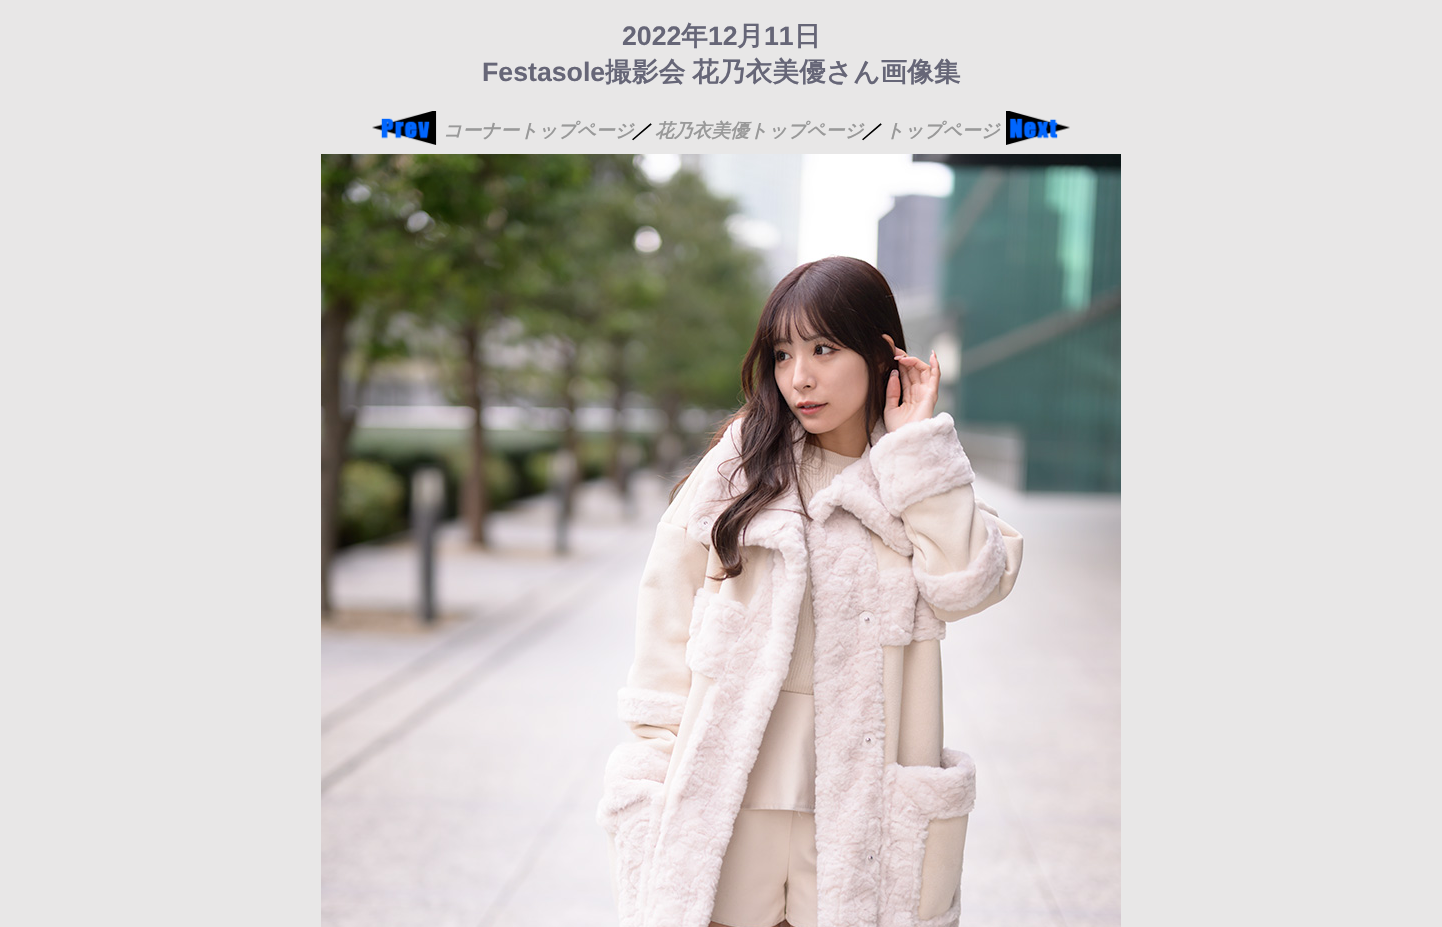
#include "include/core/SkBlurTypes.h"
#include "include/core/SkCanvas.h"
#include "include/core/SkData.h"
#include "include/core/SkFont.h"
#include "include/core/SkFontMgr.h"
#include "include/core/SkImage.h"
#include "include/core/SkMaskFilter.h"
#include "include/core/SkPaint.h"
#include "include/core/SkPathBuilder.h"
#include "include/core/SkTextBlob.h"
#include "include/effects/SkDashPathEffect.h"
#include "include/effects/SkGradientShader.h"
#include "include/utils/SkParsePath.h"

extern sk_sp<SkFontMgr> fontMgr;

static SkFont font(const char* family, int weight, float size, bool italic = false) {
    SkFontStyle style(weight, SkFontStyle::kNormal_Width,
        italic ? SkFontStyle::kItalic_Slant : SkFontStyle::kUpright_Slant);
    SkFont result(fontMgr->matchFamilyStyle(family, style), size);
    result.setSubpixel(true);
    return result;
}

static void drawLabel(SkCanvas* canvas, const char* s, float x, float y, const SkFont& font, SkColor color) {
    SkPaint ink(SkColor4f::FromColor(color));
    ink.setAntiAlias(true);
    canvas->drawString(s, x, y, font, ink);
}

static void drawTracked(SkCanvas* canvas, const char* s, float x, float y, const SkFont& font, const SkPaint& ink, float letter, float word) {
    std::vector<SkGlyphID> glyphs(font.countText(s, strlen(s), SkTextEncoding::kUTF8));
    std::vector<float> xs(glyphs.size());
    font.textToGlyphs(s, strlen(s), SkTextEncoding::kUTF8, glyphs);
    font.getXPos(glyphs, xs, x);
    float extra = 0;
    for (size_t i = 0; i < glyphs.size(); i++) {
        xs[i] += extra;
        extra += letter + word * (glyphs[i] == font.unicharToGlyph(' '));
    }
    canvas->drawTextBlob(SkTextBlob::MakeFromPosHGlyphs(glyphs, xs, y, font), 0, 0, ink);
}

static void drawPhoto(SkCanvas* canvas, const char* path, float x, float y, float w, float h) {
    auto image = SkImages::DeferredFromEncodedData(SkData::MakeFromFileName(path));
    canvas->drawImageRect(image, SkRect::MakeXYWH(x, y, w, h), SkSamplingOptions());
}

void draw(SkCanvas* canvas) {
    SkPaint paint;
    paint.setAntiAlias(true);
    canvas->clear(0xFFE8E7E7);
    SkFont font1 = font("Liberation Sans", 700, 26.7f);
    drawLabel(canvas, "2022", 622, 45, font1, 0xFF666677);
    SkFont font2 = font("WenQuanYi Zen Hei", 700, 26.7f);
    drawLabel(canvas, "年", 681, 45, font2, 0xFF666677);
    drawLabel(canvas, "12", 708, 45, font1, 0xFF666677);
    drawLabel(canvas, "月", 737, 45, font2, 0xFF666677);
    drawLabel(canvas, "11", 764, 45, font1, 0xFF666677);
    drawLabel(canvas, "日", 794, 45, font2, 0xFF666677);
    drawLabel(canvas, "Festasole", 482, 81, font1, 0xFF666677);
    paint.setColor(0xFF666677);
    drawTracked(canvas, "撮影会 花乃衣美優さん画像集", 605, 81, font2, paint, 0, -1);
    drawPhoto(canvas, "assets/img1.png", 372, 111, 65, 34);
    SkFont font3 = font("WenQuanYi Zen Hei", 700, 18.75f, true);
    drawLabel(canvas, "コーナートップページ", 443, 137, font3, 0xFF999999);
    drawLabel(canvas, "／", 632, 137, font3, 0xFF000000);
    drawLabel(canvas, "花乃衣美優トップページ", 655, 137, font3, 0xFF999999);
    drawLabel(canvas, "／", 862, 137, font3, 0xFF000000);
    drawLabel(canvas, "トップページ", 885, 137, font3, 0xFF999999);
    drawPhoto(canvas, "assets/img2.png", 1006, 111, 64, 34);
    drawPhoto(canvas, "assets/img3.png", 321, 154, 800, 773);
}
